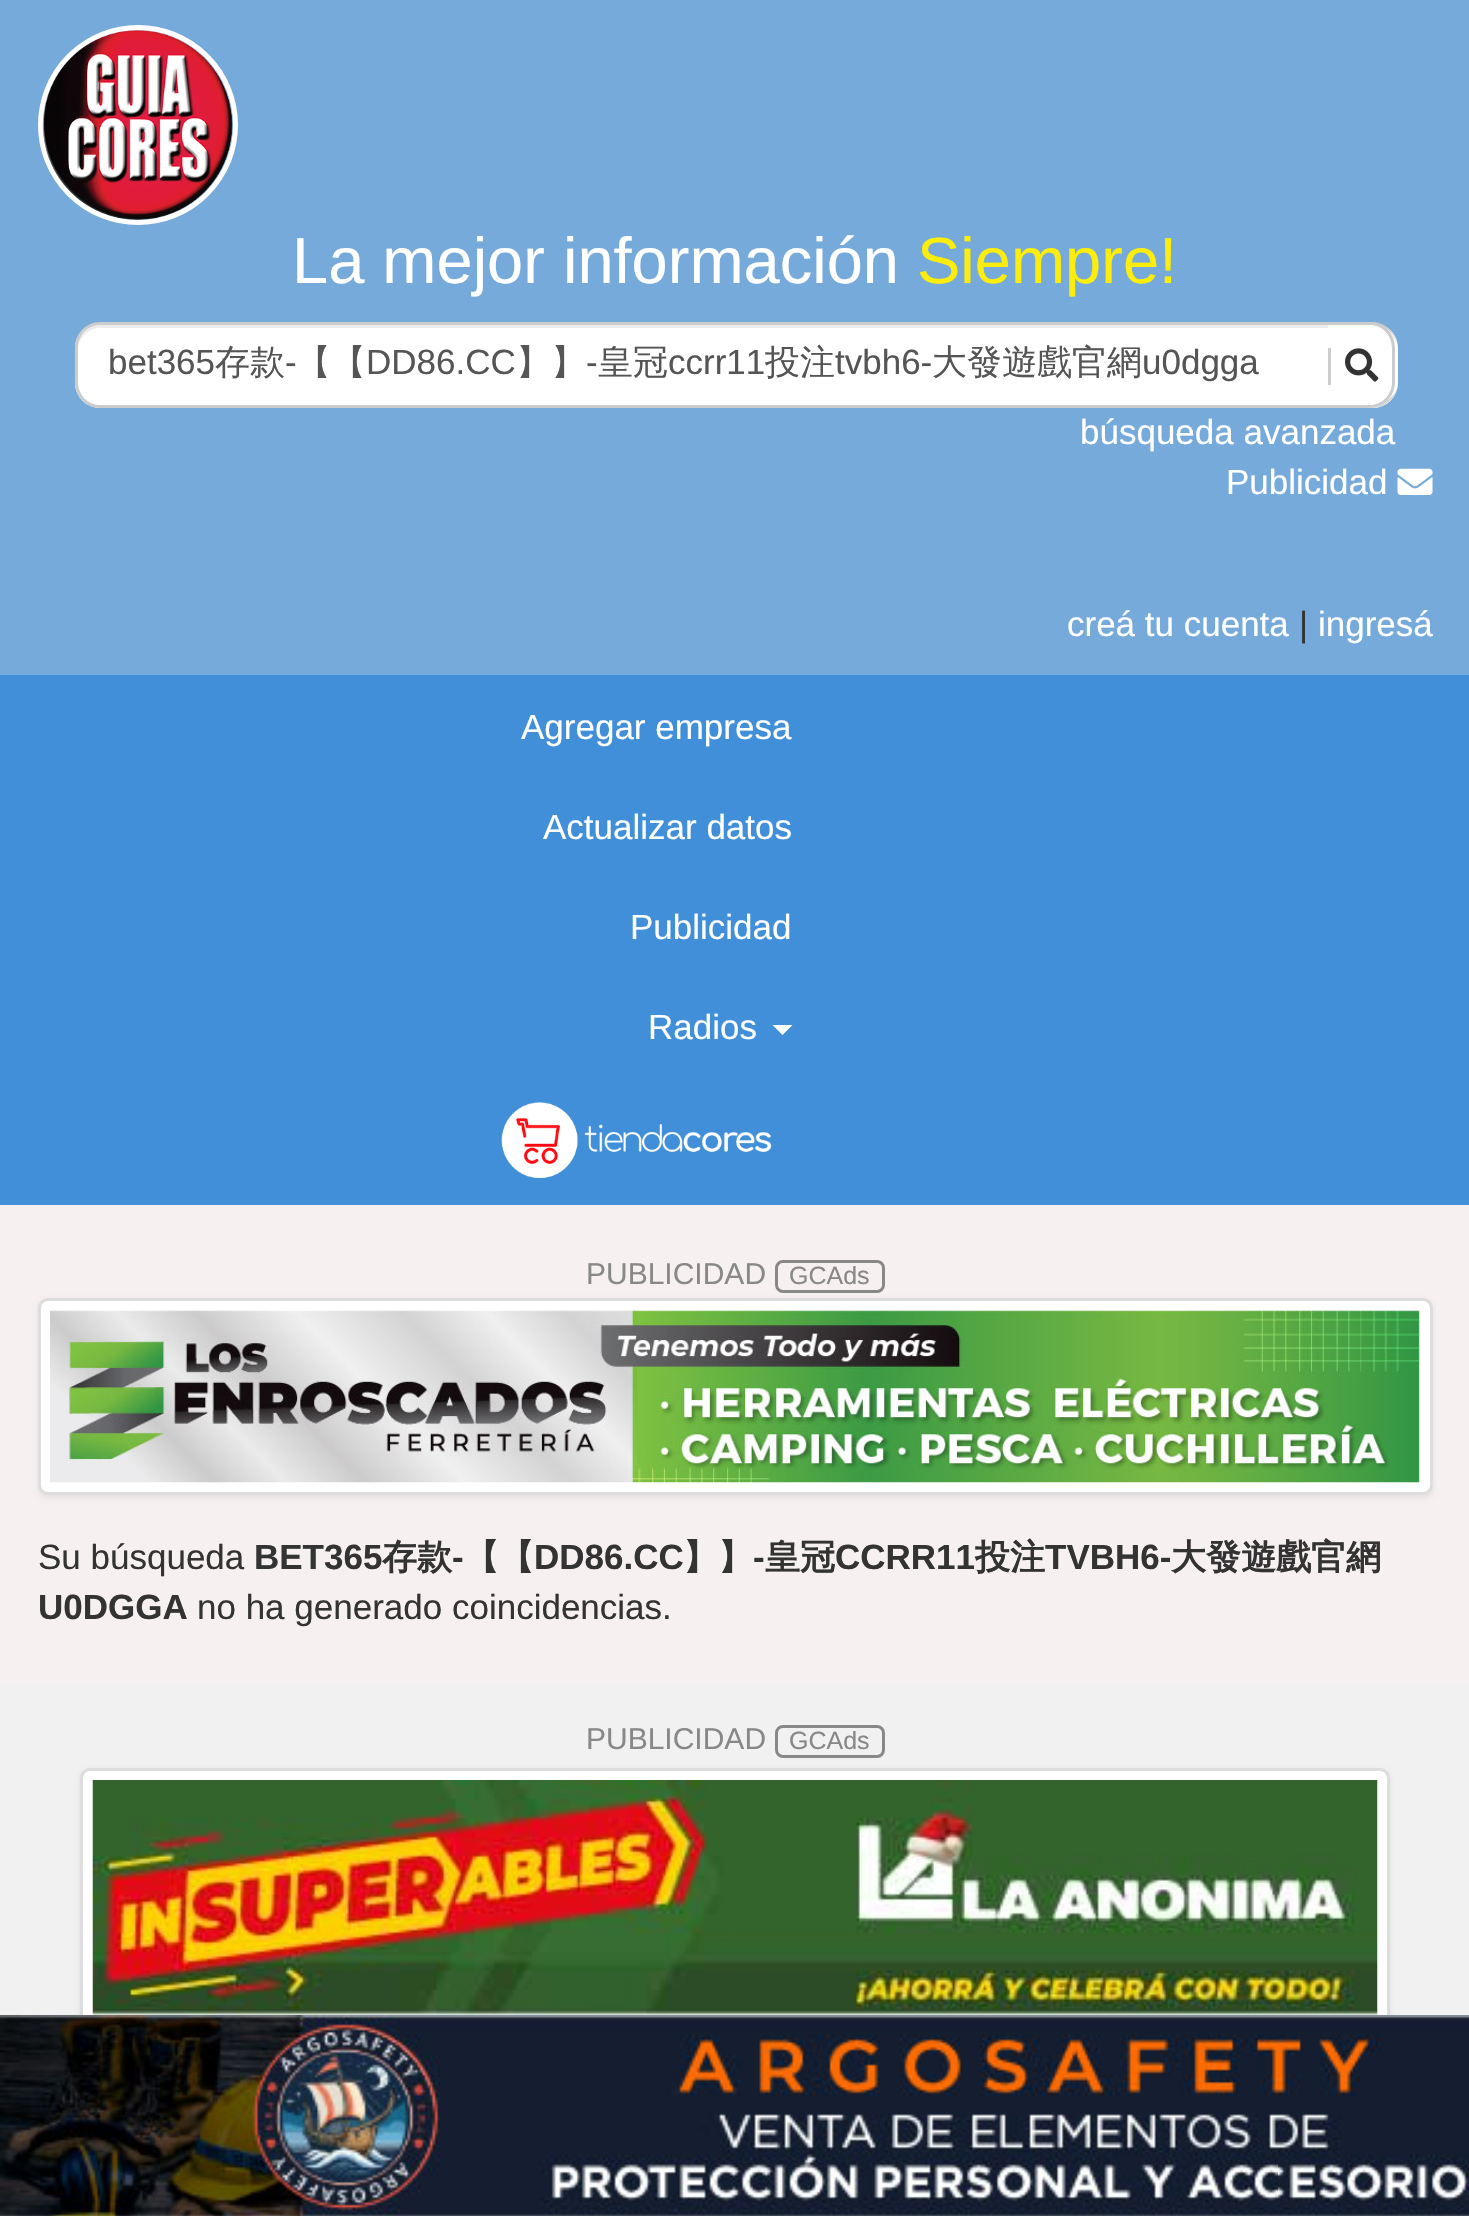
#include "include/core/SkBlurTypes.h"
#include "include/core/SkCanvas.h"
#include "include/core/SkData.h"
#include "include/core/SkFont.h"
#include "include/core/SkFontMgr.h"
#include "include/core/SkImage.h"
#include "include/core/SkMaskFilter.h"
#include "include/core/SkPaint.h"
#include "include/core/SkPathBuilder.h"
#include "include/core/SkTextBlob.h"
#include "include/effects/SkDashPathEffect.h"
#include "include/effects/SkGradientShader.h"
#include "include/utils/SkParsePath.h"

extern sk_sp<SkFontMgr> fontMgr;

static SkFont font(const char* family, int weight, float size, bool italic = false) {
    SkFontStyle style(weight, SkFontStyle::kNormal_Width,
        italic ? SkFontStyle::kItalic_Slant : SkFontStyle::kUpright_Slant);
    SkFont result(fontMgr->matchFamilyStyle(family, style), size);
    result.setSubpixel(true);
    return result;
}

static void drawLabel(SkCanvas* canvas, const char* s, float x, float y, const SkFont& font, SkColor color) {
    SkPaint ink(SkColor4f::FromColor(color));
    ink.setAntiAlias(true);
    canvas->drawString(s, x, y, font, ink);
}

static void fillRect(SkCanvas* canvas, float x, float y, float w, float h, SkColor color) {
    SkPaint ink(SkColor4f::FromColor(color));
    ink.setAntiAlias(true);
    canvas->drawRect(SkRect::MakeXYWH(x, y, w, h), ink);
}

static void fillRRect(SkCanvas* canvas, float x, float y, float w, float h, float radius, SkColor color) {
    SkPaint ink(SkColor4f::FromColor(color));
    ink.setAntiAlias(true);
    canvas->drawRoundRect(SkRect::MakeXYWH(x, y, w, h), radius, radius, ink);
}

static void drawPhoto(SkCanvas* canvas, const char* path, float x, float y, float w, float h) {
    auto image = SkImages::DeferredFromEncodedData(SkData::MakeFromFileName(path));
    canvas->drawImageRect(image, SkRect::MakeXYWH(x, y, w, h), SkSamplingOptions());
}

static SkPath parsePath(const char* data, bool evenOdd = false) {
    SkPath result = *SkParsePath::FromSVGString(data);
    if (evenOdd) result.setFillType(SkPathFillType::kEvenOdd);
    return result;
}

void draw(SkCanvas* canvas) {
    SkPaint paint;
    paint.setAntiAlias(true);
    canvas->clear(0xFF75AADB);
    paint.setStroke(true);
    paint.setStrokeWidth(5);
    paint.setColor(0xFFFFFFFF);
    canvas->drawCircle(138, 125, 97.5f, paint);
    drawPhoto(canvas, "assets/img1.png", 42, 30, 191, 190);
    SkFont font1 = font("Liberation Sans", 400, 65);
    drawLabel(canvas, "La mejor información", 292, 283, font1, 0xFFFFFFFF);
    drawLabel(canvas, "Siempre!", 917, 283, font1, 0xFFFCED0D);
    fillRRect(canvas, 75, 323, 1323, 85, 25, 0xFFFFFFFF);
    paint.setStroke(false);
    paint.setColor(0xFFECECEC);
    canvas->drawPath(parsePath("M100 328H1372C1384 328 1395 336 1397 345C1396 334 1385 325 1372 325H100C88 325 78 335 78 348V382V388V350C78 338 88 328 100 328Z"), paint);
    paint.setColor(0xFFCCCCCC);
    canvas->drawPath(parsePath("M100 322H1372C1386 322 1398 334 1398 348V382C1398 396 1386 408 1372 408H100C86 408 75 396 75 382V348C75 334 86 322 100 322ZM100 325H1372C1386 325 1398 335 1398 348V382C1398 395 1386 405 1372 405H100C88 405 78 395 78 382V348C78 335 88 325 100 325Z", true), paint);
    SkFont font2 = font("Liberation Sans", 400, 35);
    drawLabel(canvas, "bet365", 108, 374, font2, 0xFF555555);
    SkFont font3 = font("WenQuanYi Zen Hei", 500, 35);
    drawLabel(canvas, "存款", 215, 374, font3, 0xFF555555);
    drawLabel(canvas, "-", 285, 374, font2, 0xFF555555);
    drawLabel(canvas, "【【", 296, 374, font3, 0xFF555555);
    drawLabel(canvas, "DD86.CC", 366, 374, font2, 0xFF555555);
    drawLabel(canvas, "】】", 516, 374, font3, 0xFF555555);
    drawLabel(canvas, "-", 586, 374, font2, 0xFF555555);
    drawLabel(canvas, "皇冠", 598, 374, font3, 0xFF555555);
    drawLabel(canvas, "ccrr11", 668, 374, font2, 0xFF555555);
    drawLabel(canvas, "投注", 765, 374, font3, 0xFF555555);
    drawLabel(canvas, "tvbh6-", 835, 374, font2, 0xFF555555);
    drawLabel(canvas, "大發遊戲官網", 932, 374, font3, 0xFF555555);
    drawLabel(canvas, "u0dgga", 1142, 374, font2, 0xFF555555);
    paint.setColor(0xFFFFFFFF);
    canvas->drawPath(parsePath("M1328 323H1370C1384 323 1395 334 1395 348V383C1395 397 1384 408 1370 408H1328Z"), paint);
    paint.setColor(0xFFCCCCCC);
    canvas->drawPath(parsePath("M1328 322H1370C1384 322 1395 334 1395 348V382C1395 396 1384 408 1370 408H1328ZM1328 325H1370C1382 325 1392 335 1392 348V382C1392 395 1382 405 1370 405H1328Z", true), paint);
    fillRect(canvas, 1328, 348, 3, 37, 0xFFCCCCCC);
    drawPhoto(canvas, "assets/img2.png", 1345, 348, 34, 34);
    drawLabel(canvas, "búsqueda avanzada", 1080, 444, font2, 0xFFFFFFFF);
    drawLabel(canvas, "Publicidad", 1226, 494, font2, 0xFFFFFFFF);
    drawPhoto(canvas, "assets/img3.png", 1397, 468, 36, 27);
    drawLabel(canvas, "creá tu cuenta", 1067, 636, font2, 0xFFFFFFFF);
    drawLabel(canvas, "|", 1299, 636, font2, 0xFF333333);
    drawLabel(canvas, "ingresá", 1318, 636, font2, 0xFFFFFFFF);
    fillRect(canvas, 0, 675, 1469, 530, 0xFF408FD8);
    drawLabel(canvas, "Agregar empresa", 521, 739, font2, 0xFFFFFFFF);
    drawLabel(canvas, "Actualizar datos", 543, 839, font2, 0xFFFFFFFF);
    drawLabel(canvas, "Publicidad", 630, 939, font2, 0xFFFFFFFF);
    drawLabel(canvas, "Radios", 648, 1039, font2, 0xFFFFFFFF);
    paint.setColor(0xFFFFFFFF);
    canvas->drawPath(parsePath("M772.5 1025H792.5L782.5 1035Z"), paint);
    drawPhoto(canvas, "assets/img4.png", 501, 1102, 271, 76);
    fillRect(canvas, 0, 1205, 1469, 478, 0xFFF7F0F0);
    SkFont font4 = font("Liberation Sans", 400, 30);
    drawLabel(canvas, "PUBLICIDAD", 586, 1284, font4, 0xFF888888);
    paint.setStroke(true);
    paint.setStrokeWidth(3);
    paint.setColor(0xFF888888);
    canvas->drawRoundRect(SkRect::MakeXYWH(776.5f, 1261.5f, 107, 30), 6.5f, 6.5f, paint);
    SkFont font5 = font("Liberation Sans", 400, 25);
    drawLabel(canvas, "GCAds", 789, 1284, font5, 0xFF888888);
    paint.setStroke(false);
    paint.setColor(0x12000000);
    paint.setMaskFilter(SkMaskFilter::MakeBlur(kNormal_SkBlurStyle, 2.5f));
    canvas->drawRoundRect(SkRect::MakeXYWH(38, 1300, 1395, 198), 10, 10, paint);
    paint.setMaskFilter(nullptr);
    paint.setColor(0xFFFFFFFF);
    canvas->drawRoundRect(SkRect::MakeXYWH(39.5f, 1299.5f, 1392, 194), 8.5f, 8.5f, paint);
    paint.setStroke(true);
    paint.setColor(0xFFDDDDDD);
    canvas->drawRoundRect(SkRect::MakeXYWH(39.5f, 1299.5f, 1392, 194), 8.5f, 8.5f, paint);
    drawPhoto(canvas, "assets/img5.png", 50, 1310, 1370, 173);
    drawLabel(canvas, "Su búsqueda", 38, 1569, font2, 0xFF333333);
    SkFont font6 = font("Liberation Sans", 700, 35);
    drawLabel(canvas, "BET365", 254, 1569, font6, 0xFF333333);
    SkFont font7 = font("WenQuanYi Zen Hei", 700, 35);
    drawLabel(canvas, "存款", 382, 1569, font7, 0xFF333333);
    drawLabel(canvas, "-", 452, 1569, font6, 0xFF333333);
    drawLabel(canvas, "【【", 464, 1569, font7, 0xFF333333);
    drawLabel(canvas, "DD86.CC", 534, 1569, font6, 0xFF333333);
    drawLabel(canvas, "】】", 683, 1569, font7, 0xFF333333);
    drawLabel(canvas, "-", 753, 1569, font6, 0xFF333333);
    drawLabel(canvas, "皇冠", 765, 1569, font7, 0xFF333333);
    drawLabel(canvas, "CCRR11", 835, 1569, font6, 0xFF333333);
    drawLabel(canvas, "投注", 975, 1569, font7, 0xFF333333);
    drawLabel(canvas, "TVBH6-", 1045, 1569, font6, 0xFF333333);
    drawLabel(canvas, "大發遊戲官網", 1171, 1569, font7, 0xFF333333);
    drawLabel(canvas, "U0DGGA", 38, 1619, font6, 0xFF333333);
    drawLabel(canvas, "no ha generado coincidencias.", 197, 1619, font2, 0xFF333333);
    fillRect(canvas, 0, 1683, 1469, 332, 0xFFF1F1F1);
    paint.setStroke(false);
    paint.setColor(0x12000000);
    paint.setMaskFilter(SkMaskFilter::MakeBlur(kNormal_SkBlurStyle, 2.5f));
    canvas->drawRoundRect(SkRect::MakeXYWH(80, 1770, 1310, 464), 10, 10, paint);
    paint.setMaskFilter(nullptr);
    paint.setColor(0xFFFFFFFF);
    canvas->drawRoundRect(SkRect::MakeXYWH(81.5f, 1769.5f, 1307, 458), 8.5f, 8.5f, paint);
    paint.setStroke(true);
    paint.setColor(0xFFDDDDDD);
    canvas->drawRoundRect(SkRect::MakeXYWH(81.5f, 1769.5f, 1307, 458), 8.5f, 8.5f, paint);
    drawPhoto(canvas, "assets/img6.png", 0, 2015, 1469, 201);
    drawLabel(canvas, "PUBLICIDAD", 586, 1749, font4, 0xFF888888);
    paint.setColor(0xFF888888);
    canvas->drawRoundRect(SkRect::MakeXYWH(776.5f, 1726.5f, 107, 30), 6.5f, 6.5f, paint);
    drawLabel(canvas, "GCAds", 789, 1749, font5, 0xFF888888);
    drawPhoto(canvas, "assets/img7.png", 92, 1780, 1286, 235);
}
